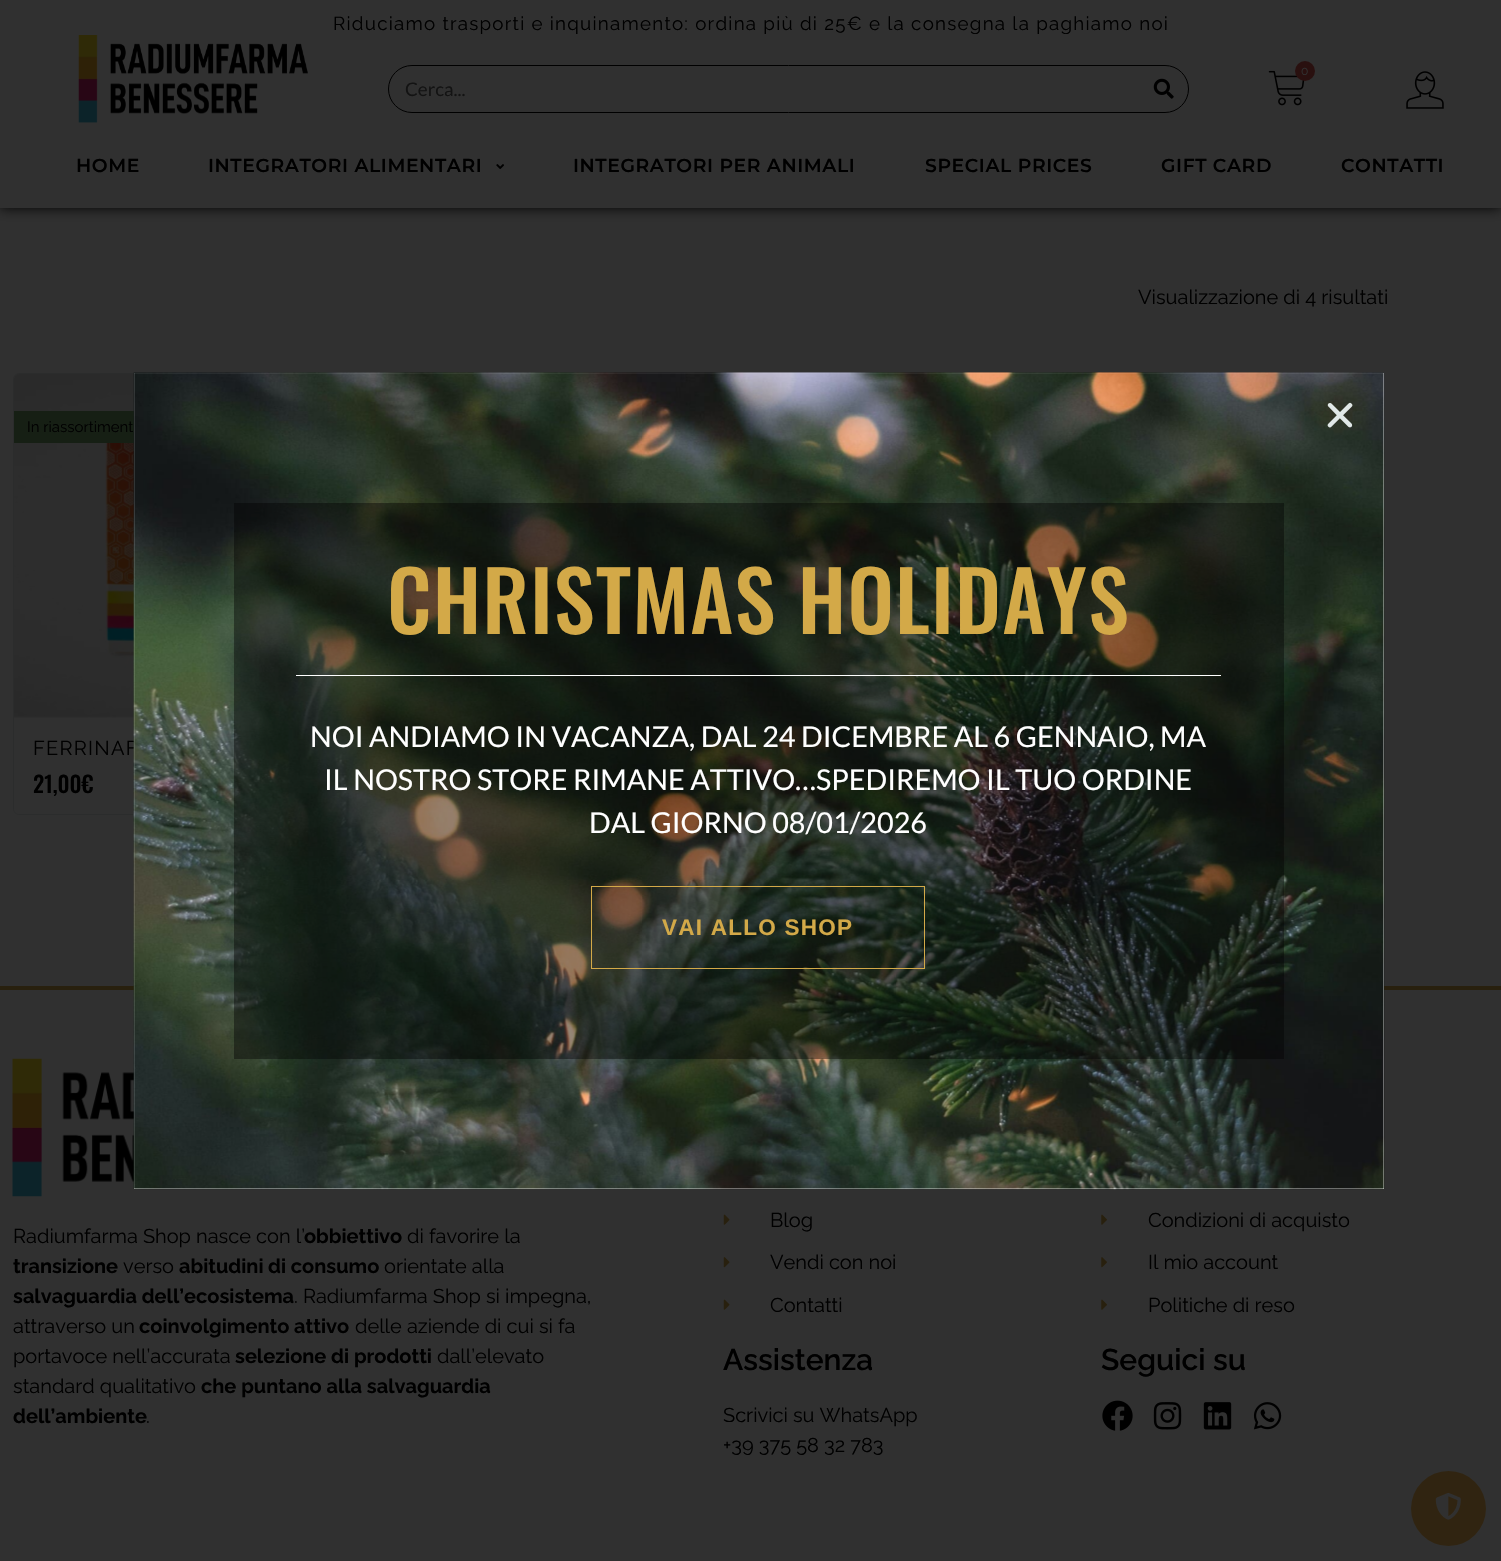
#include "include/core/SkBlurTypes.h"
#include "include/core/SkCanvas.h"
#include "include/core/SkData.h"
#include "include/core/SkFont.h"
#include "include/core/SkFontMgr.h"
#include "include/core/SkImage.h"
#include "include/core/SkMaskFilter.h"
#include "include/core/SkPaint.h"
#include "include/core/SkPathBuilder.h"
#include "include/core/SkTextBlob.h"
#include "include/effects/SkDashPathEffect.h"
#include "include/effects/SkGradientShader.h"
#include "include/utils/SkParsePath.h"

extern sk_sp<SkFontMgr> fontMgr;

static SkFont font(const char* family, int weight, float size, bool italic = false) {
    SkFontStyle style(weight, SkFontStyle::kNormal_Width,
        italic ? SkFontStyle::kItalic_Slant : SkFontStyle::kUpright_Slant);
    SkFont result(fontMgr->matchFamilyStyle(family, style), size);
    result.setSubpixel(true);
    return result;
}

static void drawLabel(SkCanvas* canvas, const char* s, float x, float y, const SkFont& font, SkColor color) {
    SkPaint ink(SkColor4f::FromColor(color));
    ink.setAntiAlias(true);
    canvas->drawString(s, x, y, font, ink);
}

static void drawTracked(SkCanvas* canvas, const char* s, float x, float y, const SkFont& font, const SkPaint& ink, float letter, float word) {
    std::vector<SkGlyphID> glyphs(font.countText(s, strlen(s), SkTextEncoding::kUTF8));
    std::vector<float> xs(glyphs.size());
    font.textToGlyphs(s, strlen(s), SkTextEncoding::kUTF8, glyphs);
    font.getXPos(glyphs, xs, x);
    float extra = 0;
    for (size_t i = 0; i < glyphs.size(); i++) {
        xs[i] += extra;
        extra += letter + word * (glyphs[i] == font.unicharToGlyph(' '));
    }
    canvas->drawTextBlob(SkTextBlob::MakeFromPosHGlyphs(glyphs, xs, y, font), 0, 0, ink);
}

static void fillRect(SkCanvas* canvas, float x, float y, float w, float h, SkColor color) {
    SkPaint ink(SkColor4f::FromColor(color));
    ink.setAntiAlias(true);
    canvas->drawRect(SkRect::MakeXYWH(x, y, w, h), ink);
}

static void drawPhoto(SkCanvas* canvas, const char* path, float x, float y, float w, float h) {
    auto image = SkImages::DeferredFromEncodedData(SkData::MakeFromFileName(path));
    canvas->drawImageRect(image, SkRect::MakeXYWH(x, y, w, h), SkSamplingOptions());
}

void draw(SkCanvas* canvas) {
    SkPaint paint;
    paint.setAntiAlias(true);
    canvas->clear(0xFF303030);
    paint.setColor(0xF5000000);
    paint.setMaskFilter(SkMaskFilter::MakeBlur(kNormal_SkBlurStyle, 6));
    canvas->drawRect(SkRect::MakeXYWH(0, 0, 1501, 208), paint);
    paint.setMaskFilter(nullptr);
    fillRect(canvas, 0, 0, 1501, 208, 0xFF303030);
    SkFont font1 = font("Raleway", 400, 18.75f);
    paint.setColor(0xFF000000);
    drawTracked(canvas, "Riduciamo trasporti e inquinamento: ordina più di 25€ e la consegna la paghiamo noi", 333, 30, font1, paint, 1.25f, 0);
    fillRect(canvas, 974, 34, 93, 1, 0xFF303030);
    drawPhoto(canvas, "assets/img1.png", 78, 35, 230, 88);
    paint.setStroke(true);
    paint.setStrokeWidth(1);
    canvas->drawRoundRect(SkRect::MakeXYWH(388.5f, 65.5f, 800, 47), 23.5f, 23.5f, paint);
    SkFont font2 = font("Lato", 400, 18.75f);
    drawLabel(canvas, "Cerca...", 405, 96, font2, 0xFF131313);
    drawPhoto(canvas, "assets/img2.png", 1153, 78, 21, 21);
    drawPhoto(canvas, "assets/img3.png", 1268, 70, 37, 36);
    paint.setStroke(false);
    paint.setColor(0xFF29100F);
    canvas->drawCircle(1305, 71, 10, paint);
    SkFont font3 = font("Raleway", 400, 12);
    drawLabel(canvas, "0", 1301, 75, font3, 0xFF303030);
    drawPhoto(canvas, "assets/img4.png", 1406, 71, 38, 38);
    SkFont font4 = font("Montserrat", 600, 18.75f);
    paint.setColor(0xFF000000);
    drawTracked(canvas, "HOME", 76, 172, font4, paint, 0.6f, 0);
    drawTracked(canvas, "INTEGRATORI ALIMENTARI", 208, 172, font4, paint, 0.6f, 0);
    drawPhoto(canvas, "assets/img5.png", 496, 164, 8, 5);
    drawTracked(canvas, "INTEGRATORI PER ANIMALI", 573, 172, font4, paint, 0.6f, 0);
    drawTracked(canvas, "SPECIAL PRICES", 925, 172, font4, paint, 0.6f, 0);
    drawTracked(canvas, "GIFT CARD", 1161, 172, font4, paint, 0.6f, 0);
    drawTracked(canvas, "CONTATTI", 1341, 172, font4, paint, 0.6f, 0);
    SkFont font5 = font("Raleway", 400, 20);
    drawLabel(canvas, "Visualizzazione di 4 risultati", 1138, 304, font5, 0xFF000000);
    paint.setStroke(true);
    paint.setColor(0xFF2B2C2C);
    canvas->drawRoundRect(SkRect::MakeXYWH(13.5f, 373.5f, 345, 441), 5.5f, 5.5f, paint);
    drawPhoto(canvas, "assets/img6.png", 14, 374, 120, 344);
    fillRect(canvas, 14, 411, 120, 32, 0xFF161F14);
    SkFont font6 = font("Raleway", 400, 15);
    drawLabel(canvas, "In riassortiment", 27, 432, font6, 0xFF000000);
    paint.setStroke(false);
    paint.setColor(0xFF000000);
    drawTracked(canvas, "FERRINAF", 33, 755, font5, paint, 1.25f, 0);
    SkFont font7 = font("Oswald", 500, 22.5f);
    drawLabel(canvas, "21,00€", 33, 793, font7, 0xFF000000);
    fillRect(canvas, 0, 986, 1501, 4, 0xFF28200E);
    fillRect(canvas, 134, 373, 1250, 816, 0xFFFFFFFF);
    drawPhoto(canvas, "assets/img9.png", 12, 1058, 122, 139);
    drawPhoto(canvas, "assets/img7.png", 133, 372, 1252, 818);
    drawPhoto(canvas, "assets/img8.png", 1327, 402, 26, 26);
    fillRect(canvas, 234, 503, 1050, 556, 0x69000000);
    SkFont font8 = font("Oswald", 500, 82.5f);
    paint.setColor(0xFFD3A948);
    drawTracked(canvas, "CHRISTMAS HOLIDAYS", 387, 634, font8, paint, 1.25f, 0);
    fillRect(canvas, 296, 675, 925, 1, 0xFFFFFFFF);
    SkFont font9 = font("Lato", 400, 28.75f);
    drawLabel(canvas, "NOI ANDIAMO IN VACANZA, DAL 24 DICEMBRE AL 6 GENNAIO, MA", 310, 747, font9, 0xFFFFFFFF);
    drawLabel(canvas, "IL NOSTRO STORE RIMANE ATTIVO…SPEDIREMO IL TUO ORDINE", 324, 790, font9, 0xFFFFFFFF);
    drawLabel(canvas, "DAL GIORNO 08/01/2026", 589, 833, font9, 0xFFFFFFFF);
    paint.setStroke(true);
    canvas->drawRect(SkRect::MakeXYWH(591.5f, 886.5f, 333, 82), paint);
    SkFont font10 = font("Liberation Sans", 700, 22.5f);
    paint.setStroke(false);
    drawTracked(canvas, "VAI ALLO SHOP", 662, 935, font10, paint, 1.25f, 0);
    drawLabel(canvas, "Radiumfarma Shop nasce con l’", 13, 1243, font5, 0xFF000000);
    SkFont font11 = font("Raleway", 700, 20);
    drawLabel(canvas, "obbiettivo", 304, 1243, font11, 0xFF000000);
    drawLabel(canvas, "di favorire la", 407, 1243, font5, 0xFF000000);
    drawLabel(canvas, "transizione", 13, 1273, font11, 0xFF000000);
    drawLabel(canvas, "verso", 123, 1273, font5, 0xFF000000);
    drawLabel(canvas, "abitudini", 179, 1273, font11, 0xFF000000);
    drawLabel(canvas, "di consumo", 268, 1273, font11, 0xFF000000);
    drawLabel(canvas, "orientate alla", 384, 1273, font5, 0xFF000000);
    drawLabel(canvas, "salvaguardia dell’ecosistema", 13, 1303, font11, 0xFF000000);
    drawLabel(canvas, ". Radiumfarma Shop si impegna,", 294, 1303, font5, 0xFF000000);
    drawLabel(canvas, "attraverso un", 13, 1333, font5, 0xFF000000);
    drawLabel(canvas, "coinvolgimento attivo", 139, 1333, font11, 0xFF000000);
    drawLabel(canvas, "delle aziende di cui si fa", 355, 1333, font5, 0xFF000000);
    drawLabel(canvas, "portavoce nell’accurata", 13, 1363, font5, 0xFF000000);
    drawLabel(canvas, "selezione di prodotti", 235, 1363, font11, 0xFF000000);
    drawLabel(canvas, "dall’elevato", 437, 1363, font5, 0xFF000000);
    drawLabel(canvas, "standard qualitativo", 13, 1393, font5, 0xFF000000);
    drawLabel(canvas, "che puntano alla salvaguardia", 201, 1393, font11, 0xFF000000);
    drawLabel(canvas, "dell’ambiente", 13, 1423, font11, 0xFF000000);
    drawLabel(canvas, ".", 146, 1423, font5, 0xFF000000);
    drawPhoto(canvas, "assets/img10.png", 723, 1214, 7, 11);
    drawLabel(canvas, "Blog", 770, 1227, font5, 0xFF000000);
    drawPhoto(canvas, "assets/img11.png", 723, 1257, 7, 11);
    drawLabel(canvas, "Vendi con noi", 770, 1269, font5, 0xFF000000);
    drawPhoto(canvas, "assets/img10.png", 723, 1299, 7, 11);
    drawLabel(canvas, "Contatti", 770, 1312, font5, 0xFF000000);
    SkFont font12 = font("Raleway", 600, 30);
    drawLabel(canvas, "Assistenza", 723, 1370, font12, 0xFF000000);
    drawLabel(canvas, "Scrivici su WhatsApp", 723, 1422, font5, 0xFF000000);
    drawLabel(canvas, "+39 375 58 32 783", 723, 1452, font5, 0xFF000000);
    drawPhoto(canvas, "assets/img12.png", 1101, 1214, 6, 11);
    drawLabel(canvas, "Condizioni di acquisto", 1148, 1227, font5, 0xFF000000);
    drawPhoto(canvas, "assets/img13.png", 1101, 1257, 6, 11);
    drawLabel(canvas, "Il mio account", 1148, 1269, font5, 0xFF000000);
    drawPhoto(canvas, "assets/img12.png", 1101, 1299, 6, 11);
    drawLabel(canvas, "Politiche di reso", 1148, 1312, font5, 0xFF000000);
    drawLabel(canvas, "Seguici su", 1101, 1370, font12, 0xFF000000);
    drawPhoto(canvas, "assets/img14.png", 1102, 1400, 31, 31);
    drawPhoto(canvas, "assets/img15.png", 1153, 1402, 29, 28);
    drawPhoto(canvas, "assets/img16.png", 1203, 1402, 29, 28);
    drawPhoto(canvas, "assets/img17.png", 1253, 1402, 29, 28);
    paint.setColor(0xFF302411);
    canvas->drawCircle(1448.5f, 1508.5f, 37.5f, paint);
    drawPhoto(canvas, "assets/img18.png", 1435, 1492, 26, 28);
}
